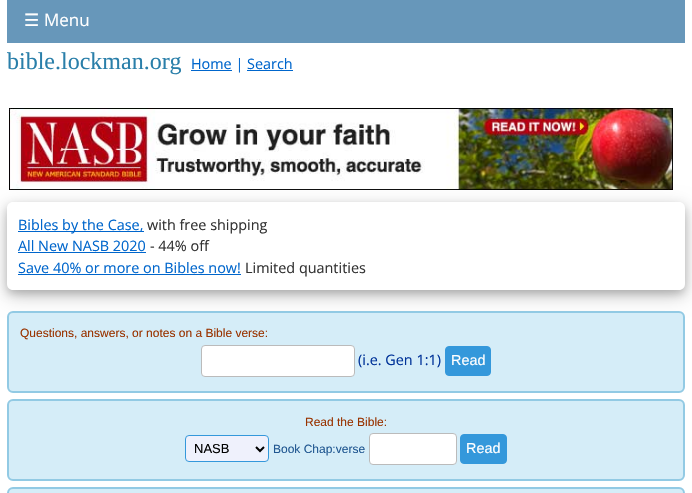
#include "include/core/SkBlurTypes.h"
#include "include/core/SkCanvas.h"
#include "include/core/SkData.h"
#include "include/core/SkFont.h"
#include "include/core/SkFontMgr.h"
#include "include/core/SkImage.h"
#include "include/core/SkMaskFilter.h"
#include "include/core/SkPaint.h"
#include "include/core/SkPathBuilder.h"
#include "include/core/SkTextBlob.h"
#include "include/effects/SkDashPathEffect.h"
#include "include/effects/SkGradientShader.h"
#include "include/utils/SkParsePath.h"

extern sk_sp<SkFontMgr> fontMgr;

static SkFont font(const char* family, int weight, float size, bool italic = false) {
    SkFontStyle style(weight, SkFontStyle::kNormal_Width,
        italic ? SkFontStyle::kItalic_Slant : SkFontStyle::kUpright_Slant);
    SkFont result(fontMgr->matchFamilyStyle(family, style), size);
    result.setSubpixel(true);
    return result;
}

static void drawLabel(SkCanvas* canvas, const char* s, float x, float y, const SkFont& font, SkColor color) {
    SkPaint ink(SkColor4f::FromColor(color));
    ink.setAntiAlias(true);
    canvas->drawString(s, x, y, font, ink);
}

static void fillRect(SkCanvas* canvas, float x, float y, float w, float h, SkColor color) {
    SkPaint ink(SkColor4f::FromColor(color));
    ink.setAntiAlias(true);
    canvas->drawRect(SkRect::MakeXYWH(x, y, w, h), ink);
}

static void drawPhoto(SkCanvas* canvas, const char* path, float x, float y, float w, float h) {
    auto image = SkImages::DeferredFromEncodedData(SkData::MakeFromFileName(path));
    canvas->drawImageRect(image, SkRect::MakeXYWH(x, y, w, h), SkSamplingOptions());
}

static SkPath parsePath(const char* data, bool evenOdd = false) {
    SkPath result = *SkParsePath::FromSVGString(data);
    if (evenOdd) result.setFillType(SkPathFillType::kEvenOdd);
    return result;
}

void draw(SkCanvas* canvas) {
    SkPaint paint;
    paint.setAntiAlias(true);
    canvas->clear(0xFFFFFFFF);
    fillRect(canvas, 7, 0, 678, 43, 0xFF6797BA);
    SkFont font1 = font("DejaVu Sans", 400, 17);
    drawLabel(canvas, "☰", 24, 26, font1, 0xFFFFFFFF);
    SkFont font2 = font("Open Sans", 400, 17);
    drawLabel(canvas, "Menu", 44, 26, font2, 0xFFFFFFFF);
    SkFont font3 = font("Liberation Serif", 400, 24);
    drawLabel(canvas, "bible.lockman.org", 7, 69, font3, 0xFF2A7FAA);
    fillRect(canvas, 191, 70, 41, 1, 0xFF0066CC);
    SkFont font4 = font("Open Sans", 400, 14.4f);
    drawLabel(canvas, "Home | Search", 191, 69, font4, 0xFF0066CC);
    fillRect(canvas, 247, 70, 46, 1, 0xFF0066CC);
    canvas->save();
    canvas->clipPath(parsePath("M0 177H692V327H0ZM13 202H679C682.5 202 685 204.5 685 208V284C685 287.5 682.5 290 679 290H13C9.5 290 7 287.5 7 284V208C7 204.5 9.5 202 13 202Z", true), true);
    paint.setColor(0x30000000);
    paint.setMaskFilter(SkMaskFilter::MakeBlur(kNormal_SkBlurStyle, 10));
    canvas->drawRoundRect(SkRect::MakeXYWH(7, 208, 678, 88), 6, 6, paint);
    paint.setMaskFilter(nullptr);
    canvas->restore();
    drawPhoto(canvas, "assets/img1.png", 9, 108, 664, 82);
    canvas->save();
    canvas->clipPath(parsePath("M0 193H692V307H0ZM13 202H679C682.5 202 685 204.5 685 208V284C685 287.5 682.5 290 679 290H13C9.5 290 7 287.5 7 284V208C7 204.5 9.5 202 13 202Z", true), true);
    paint.setColor(0x33000000);
    paint.setMaskFilter(SkMaskFilter::MakeBlur(kNormal_SkBlurStyle, 4));
    canvas->drawRoundRect(SkRect::MakeXYWH(7, 206, 678, 88), 6, 6, paint);
    paint.setMaskFilter(nullptr);
    canvas->restore();
    fillRect(canvas, 18, 231, 126, 1, 0xFF0066CC);
    drawLabel(canvas, "Bibles by the Case,", 18, 230, font4, 0xFF0066CC);
    drawLabel(canvas, "with free shipping", 147, 230, font4, 0xFF333333);
    drawLabel(canvas, "All New NASB 2020", 18, 251, font4, 0xFF0066CC);
    fillRect(canvas, 18, 252, 128, 1, 0xFF0066CC);
    drawLabel(canvas, "- 44% off", 150, 251, font4, 0xFF333333);
    drawLabel(canvas, "Save 40% or more on Bibles now!", 18, 273, font4, 0xFF0066CC);
    fillRect(canvas, 18, 274, 223, 1, 0xFF0066CC);
    drawLabel(canvas, "Limited quantities", 245, 273, font4, 0xFF333333);
    paint.setColor(0xFFD5EDF8);
    canvas->drawRoundRect(SkRect::MakeXYWH(8, 312, 676, 80), 5, 5, paint);
    paint.setStroke(true);
    paint.setStrokeWidth(2);
    paint.setColor(0xFF92CAE4);
    canvas->drawRoundRect(SkRect::MakeXYWH(8, 312, 676, 80), 5, 5, paint);
    SkFont font5 = font("Liberation Sans", 400, 12);
    drawLabel(canvas, "Questions, answers, or notes on a Bible verse:", 20, 337, font5, 0xFF993300);
    paint.setStroke(false);
    paint.setColor(0xFFFFFFFF);
    canvas->drawRoundRect(SkRect::MakeXYWH(201.5f, 345.5f, 153, 31), 3.5f, 3.5f, paint);
    paint.setStroke(true);
    paint.setStrokeWidth(1);
    paint.setColor(0xFFBBBBBB);
    canvas->drawRoundRect(SkRect::MakeXYWH(201.5f, 345.5f, 153, 31), 3.5f, 3.5f, paint);
    drawLabel(canvas, "(i.e. Gen 1:1)", 358, 365, font4, 0xFF003399);
    paint.setStroke(false);
    paint.setColor(0xFF3498DB);
    canvas->drawRoundRect(SkRect::MakeXYWH(445.5f, 346.5f, 45, 29), 3.5f, 3.5f, paint);
    paint.setStroke(true);
    canvas->drawRoundRect(SkRect::MakeXYWH(445.5f, 346.5f, 45, 29), 3.5f, 3.5f, paint);
    SkFont font6 = font("Liberation Sans", 400, 14.4f);
    drawLabel(canvas, "Read", 451, 365, font6, 0xFFFFFFFF);
    paint.setStroke(false);
    paint.setColor(0xFFD5EDF8);
    canvas->drawRoundRect(SkRect::MakeXYWH(8, 400, 676, 80), 5, 5, paint);
    paint.setStroke(true);
    paint.setStrokeWidth(2);
    paint.setColor(0xFF92CAE4);
    canvas->drawRoundRect(SkRect::MakeXYWH(8, 400, 676, 80), 5, 5, paint);
    drawLabel(canvas, "Read the Bible:", 305, 426, font5, 0xFF993300);
    paint.setStroke(false);
    paint.setColor(0xFFEFF1FC);
    canvas->drawRoundRect(SkRect::MakeXYWH(185.5f, 435.5f, 83, 26), 3.5f, 3.5f, paint);
    paint.setStroke(true);
    paint.setStrokeWidth(1);
    paint.setColor(0xFF3498DB);
    canvas->drawRoundRect(SkRect::MakeXYWH(185.5f, 435.5f, 83, 26), 3.5f, 3.5f, paint);
    paint.setStrokeWidth(2);
    paint.setColor(0xFF000000);
    canvas->drawPath(parsePath("M256 447L260 451L264 447"), paint);
    SkFont font7 = font("Liberation Sans", 400, 13);
    drawLabel(canvas, "NASB", 194, 453, font7, 0xFF000000);
    drawLabel(canvas, "Book Chap:verse", 273, 453, font5, 0xFF205791);
    paint.setStroke(false);
    paint.setColor(0xFFFFFFFF);
    canvas->drawRoundRect(SkRect::MakeXYWH(369.5f, 433.5f, 87, 31), 3.5f, 3.5f, paint);
    paint.setStroke(true);
    paint.setStrokeWidth(1);
    paint.setColor(0xFFBBBBBB);
    canvas->drawRoundRect(SkRect::MakeXYWH(369.5f, 433.5f, 87, 31), 3.5f, 3.5f, paint);
    paint.setStroke(false);
    paint.setColor(0xFF3498DB);
    canvas->drawRoundRect(SkRect::MakeXYWH(460.5f, 434.5f, 46, 29), 3.5f, 3.5f, paint);
    paint.setStroke(true);
    canvas->drawRoundRect(SkRect::MakeXYWH(460.5f, 434.5f, 46, 29), 3.5f, 3.5f, paint);
    drawLabel(canvas, "Read", 466, 453, font6, 0xFFFFFFFF);
    paint.setStroke(false);
    paint.setColor(0xFFD5EDF8);
    canvas->drawRoundRect(SkRect::MakeXYWH(8, 488, 676, 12), 5, 5, paint);
    paint.setStroke(true);
    paint.setStrokeWidth(2);
    paint.setColor(0xFF92CAE4);
    canvas->drawRoundRect(SkRect::MakeXYWH(8, 488, 676, 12), 5, 5, paint);
}
